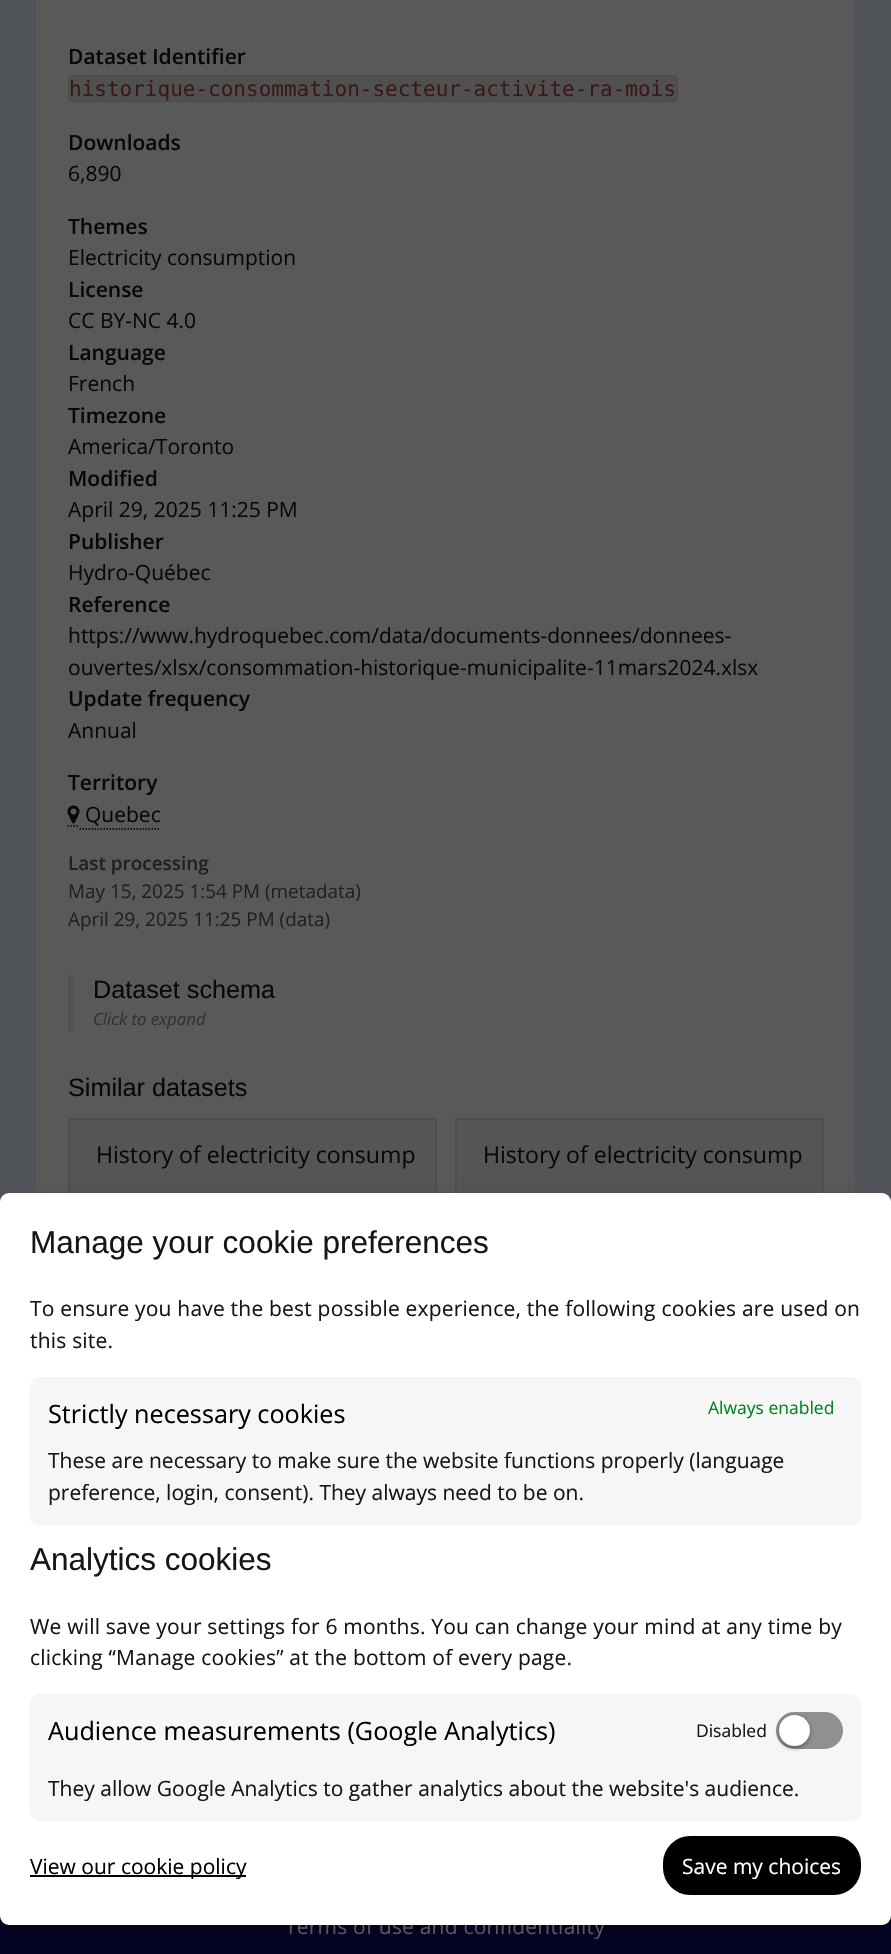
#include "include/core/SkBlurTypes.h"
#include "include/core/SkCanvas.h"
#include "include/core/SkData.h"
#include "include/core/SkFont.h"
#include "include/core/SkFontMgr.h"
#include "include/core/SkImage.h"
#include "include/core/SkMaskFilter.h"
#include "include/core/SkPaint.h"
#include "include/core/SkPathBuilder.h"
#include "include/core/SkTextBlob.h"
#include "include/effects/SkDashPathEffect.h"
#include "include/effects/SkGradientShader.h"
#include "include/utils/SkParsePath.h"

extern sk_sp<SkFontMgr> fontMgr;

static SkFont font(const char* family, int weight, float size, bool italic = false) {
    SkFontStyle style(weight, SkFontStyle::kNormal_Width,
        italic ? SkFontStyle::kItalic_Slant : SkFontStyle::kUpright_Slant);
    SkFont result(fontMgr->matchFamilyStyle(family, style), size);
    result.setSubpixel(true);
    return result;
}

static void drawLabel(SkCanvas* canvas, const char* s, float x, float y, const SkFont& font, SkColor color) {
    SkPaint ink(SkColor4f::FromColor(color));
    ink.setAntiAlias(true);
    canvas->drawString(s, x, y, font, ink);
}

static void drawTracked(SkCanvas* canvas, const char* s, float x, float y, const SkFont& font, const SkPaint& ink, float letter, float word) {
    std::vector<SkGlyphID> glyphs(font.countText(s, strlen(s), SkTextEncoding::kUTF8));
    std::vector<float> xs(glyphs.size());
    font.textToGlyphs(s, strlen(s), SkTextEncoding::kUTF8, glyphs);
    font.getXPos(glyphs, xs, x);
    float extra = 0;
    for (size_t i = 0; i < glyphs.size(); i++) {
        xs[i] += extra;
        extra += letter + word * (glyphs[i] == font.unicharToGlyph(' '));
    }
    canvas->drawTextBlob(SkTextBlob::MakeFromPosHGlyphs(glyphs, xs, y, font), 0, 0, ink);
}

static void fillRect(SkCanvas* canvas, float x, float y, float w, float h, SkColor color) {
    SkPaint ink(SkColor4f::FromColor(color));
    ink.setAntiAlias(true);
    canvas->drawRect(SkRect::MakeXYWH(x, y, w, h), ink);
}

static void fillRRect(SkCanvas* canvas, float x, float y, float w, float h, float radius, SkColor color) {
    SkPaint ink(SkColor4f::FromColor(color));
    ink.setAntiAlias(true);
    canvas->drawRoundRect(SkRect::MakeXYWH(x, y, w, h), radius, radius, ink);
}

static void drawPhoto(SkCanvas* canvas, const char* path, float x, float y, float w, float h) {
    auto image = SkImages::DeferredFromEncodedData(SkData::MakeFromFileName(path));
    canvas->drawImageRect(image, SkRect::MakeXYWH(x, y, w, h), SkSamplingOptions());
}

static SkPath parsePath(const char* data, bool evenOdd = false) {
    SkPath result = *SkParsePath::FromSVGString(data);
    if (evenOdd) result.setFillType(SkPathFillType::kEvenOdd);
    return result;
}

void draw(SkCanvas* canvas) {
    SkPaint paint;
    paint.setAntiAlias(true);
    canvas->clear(0xFF515458);
    fillRect(canvas, 38, 0, 815, 1193, 0xFF595959);
    paint.setStroke(true);
    paint.setStrokeWidth(2);
    paint.setColor(0xFF595959);
    canvas->drawRect(SkRect::MakeXYWH(37, -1, 817, 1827), paint);
    SkFont font1 = font("Open Sans", 600, 21);
    drawLabel(canvas, "Dataset Identifier", 68, 64, font1, 0xFF080808);
    fillRRect(canvas, 68, 75, 610, 27, 6, 0xFF505050);
    paint.setColor(0x0D000000);
    canvas->drawRect(SkRect::MakeXYWH(69, 76, 608, 25), paint);
    SkFont font2 = font("DejaVu Sans Mono", 400, 21);
    drawLabel(canvas, "historique-consommation-secteur-activite-ra-mois", 69, 96, font2, 0xFF3B1817);
    drawLabel(canvas, "Downloads", 68, 150, font1, 0xFF080808);
    SkFont font3 = font("Open Sans", 400, 21);
    drawLabel(canvas, "6,890", 68, 181, font3, 0xFF080808);
    drawLabel(canvas, "Themes", 68, 234, font1, 0xFF080808);
    drawLabel(canvas, "Electricity consumption", 68, 265, font3, 0xFF080808);
    drawLabel(canvas, "License", 68, 297, font1, 0xFF080808);
    drawLabel(canvas, "CC BY-NC 4.0", 68, 328, font3, 0xFF080808);
    drawLabel(canvas, "Language", 68, 360, font1, 0xFF080808);
    drawLabel(canvas, "French", 68, 391, font3, 0xFF080808);
    drawLabel(canvas, "Timezone", 68, 423, font1, 0xFF080808);
    drawLabel(canvas, "America/Toronto", 68, 454, font3, 0xFF080808);
    drawLabel(canvas, "Modified", 68, 486, font1, 0xFF080808);
    drawLabel(canvas, "April 29, 2025 11:25 PM", 68, 517, font3, 0xFF080808);
    drawLabel(canvas, "Publisher", 68, 549, font1, 0xFF080808);
    drawLabel(canvas, "Hydro-Québec", 68, 580, font3, 0xFF080808);
    drawLabel(canvas, "Reference", 68, 612, font1, 0xFF080808);
    drawLabel(canvas, "https://www.hydroquebec.com/data/documents-donnees/donnees-", 68, 643, font3, 0xFF080808);
    drawLabel(canvas, "ouvertes/xlsx/consommation-historique-municipalite-11mars2024.xlsx", 68, 675, font3, 0xFF080808);
    drawLabel(canvas, "Update frequency", 68, 706, font1, 0xFF080808);
    drawLabel(canvas, "Annual", 68, 738, font3, 0xFF080808);
    drawLabel(canvas, "Territory", 68, 790, font1, 0xFF080808);
    paint.setStrokeWidth(1.5f);
    paint.setColor(0xFF000000);
    paint.setPathEffect(SkDashPathEffect::Make({{1.5f, 1.5f}}, 0));
    canvas->drawPath(parsePath("M67.5 826H79.5"), paint);
    paint.setPathEffect(nullptr);
    paint.setPathEffect(SkDashPathEffect::Make({{1.5f, 1.5f}}, 0));
    canvas->drawPath(parsePath("M79.5 829H160.5"), paint);
    paint.setPathEffect(nullptr);
    drawPhoto(canvas, "assets/img1.png", 67, 805, 13, 19);
    drawLabel(canvas, "Quebec", 85, 822, font3, 0xFF080808);
    SkFont font4 = font("Open Sans", 600, 18.9f);
    drawLabel(canvas, "Last processing", 68, 870, font4, 0xFF202020);
    SkFont font5 = font("Open Sans", 400, 18.9f);
    drawLabel(canvas, "May 15, 2025 1:54 PM (metadata)", 68, 898, font5, 0xFF202020);
    drawLabel(canvas, "April 29, 2025 11:25 PM (data)", 68, 926, font5, 0xFF202020);
    fillRect(canvas, 68, 975, 5, 57, 0xFF515151);
    SkFont font6 = font("Liberation Sans", 400, 25.2f);
    drawLabel(canvas, "Dataset schema", 93, 998, font6, 0xFF080808);
    SkFont font7 = font("Open Sans", 400, 16.75f, true);
    drawLabel(canvas, "Click to expand", 93, 1025, font7, 0xFF313131);
    drawLabel(canvas, "Similar datasets", 68, 1096, font6, 0xFF080808);
    fillRect(canvas, 70, 1120, 365, 73, 0xFF555555);
    paint.setStrokeWidth(2);
    paint.setColor(0xFF505050);
    canvas->drawRect(SkRect::MakeXYWH(69, 1119, 367, 257), paint);
    SkFont font8 = font("Open Sans", 400, 23.1f);
    drawLabel(canvas, "History of electricity consump", 96, 1163, font8, 0xFF080808);
    fillRect(canvas, 457, 1120, 365, 73, 0xFF555555);
    canvas->drawRect(SkRect::MakeXYWH(456, 1119, 367, 257), paint);
    drawLabel(canvas, "History of electricity consump", 483, 1163, font8, 0xFF080808);
    fillRect(canvas, 0, 1916, 891, 38, 0xFF050326);
    paint.setStroke(false);
    paint.setColor(0x40000000);
    paint.setMaskFilter(SkMaskFilter::MakeBlur(kNormal_SkBlurStyle, 10));
    canvas->drawRoundRect(SkRect::MakeXYWH(0, 1202, 891, 732), 9, 9, paint);
    paint.setMaskFilter(nullptr);
    paint.setColor(0xFF595959);
    drawTracked(canvas, "Terms of use and confidentiality", 285, 1934, font3, paint, 0.2f, 0);
    fillRRect(canvas, 0, 1193, 891, 732, 9, 0xFFFFFFFF);
    SkFont font9 = font("Liberation Sans", 400, 31.5f);
    drawLabel(canvas, "Manage your cookie preferences", 30, 1253, font9, 0xFF161616);
    paint.setColor(0xFF161616);
    drawTracked(canvas, "To ensure you have the best possible experience, the following cookies are used on", 30, 1316, font3, paint, 0.2f, 0);
    drawTracked(canvas, "this site.", 30, 1348, font3, paint, 0.2f, 0);
    fillRRect(canvas, 30, 1377, 831, 149, 9, 0xFFF6F6F6);
    SkFont font10 = font("Open Sans", 400, 25.2f);
    drawLabel(canvas, "Strictly necessary cookies", 48, 1423, font10, 0xFF000000);
    SkFont font11 = font("Open Sans", 400, 17.5f);
    drawLabel(canvas, "Always enabled", 708, 1414, font11, 0xFF01821F);
    drawLabel(canvas, "These are necessary to make sure the website functions properly (language", 48, 1468, font3, 0xFF161616);
    drawLabel(canvas, "preference, login, consent). They always need to be on.", 48, 1500, font3, 0xFF161616);
    drawLabel(canvas, "Analytics cookies", 30, 1570, font9, 0xFF161616);
    drawTracked(canvas, "We will save your settings for 6 months. You can change your mind at any time by", 30, 1634, font3, paint, 0.2f, 0);
    drawTracked(canvas, "clicking “Manage cookies” at the bottom of every page.", 30, 1665, font3, paint, 0.2f, 0);
    fillRRect(canvas, 30, 1694, 831, 127, 9, 0xFFF6F6F6);
    drawLabel(canvas, "Audience measurements (Google Analytics)", 48, 1740, font10, 0xFF000000);
    drawLabel(canvas, "Disabled", 696, 1737, font11, 0xFF161616);
    paint.setColor(0xFF909090);
    canvas->drawRoundRect(SkRect::MakeXYWH(777.5f, 1713.5f, 64, 34), 17, 17, paint);
    paint.setStroke(true);
    paint.setStrokeWidth(3);
    canvas->drawRoundRect(SkRect::MakeXYWH(777.5f, 1713.5f, 64, 34), 17, 17, paint);
    paint.setStroke(false);
    paint.setColor(0x66000000);
    paint.setMaskFilter(SkMaskFilter::MakeBlur(kNormal_SkBlurStyle, 2));
    canvas->drawRoundRect(SkRect::MakeXYWH(779, 1716, 31, 32), 15.5f, 15.5f, paint);
    paint.setMaskFilter(nullptr);
    paint.setColor(0xFFFFFFFF);
    canvas->drawCircle(794.5f, 1730.5f, 15.5f, paint);
    drawLabel(canvas, "They allow Google Analytics to gather analytics about the website's audience.", 48, 1796, font3, 0xFF161616);
    fillRect(canvas, 30, 1875, 216, 2, 0xFF000000);
    drawLabel(canvas, "View our cookie policy", 30, 1874, font3, 0xFF000000);
    fillRRect(canvas, 663, 1836, 198, 59, 27, 0xFF000000);
    drawLabel(canvas, "Save my choices", 682, 1874, font3, 0xFFFFFFFF);
}
